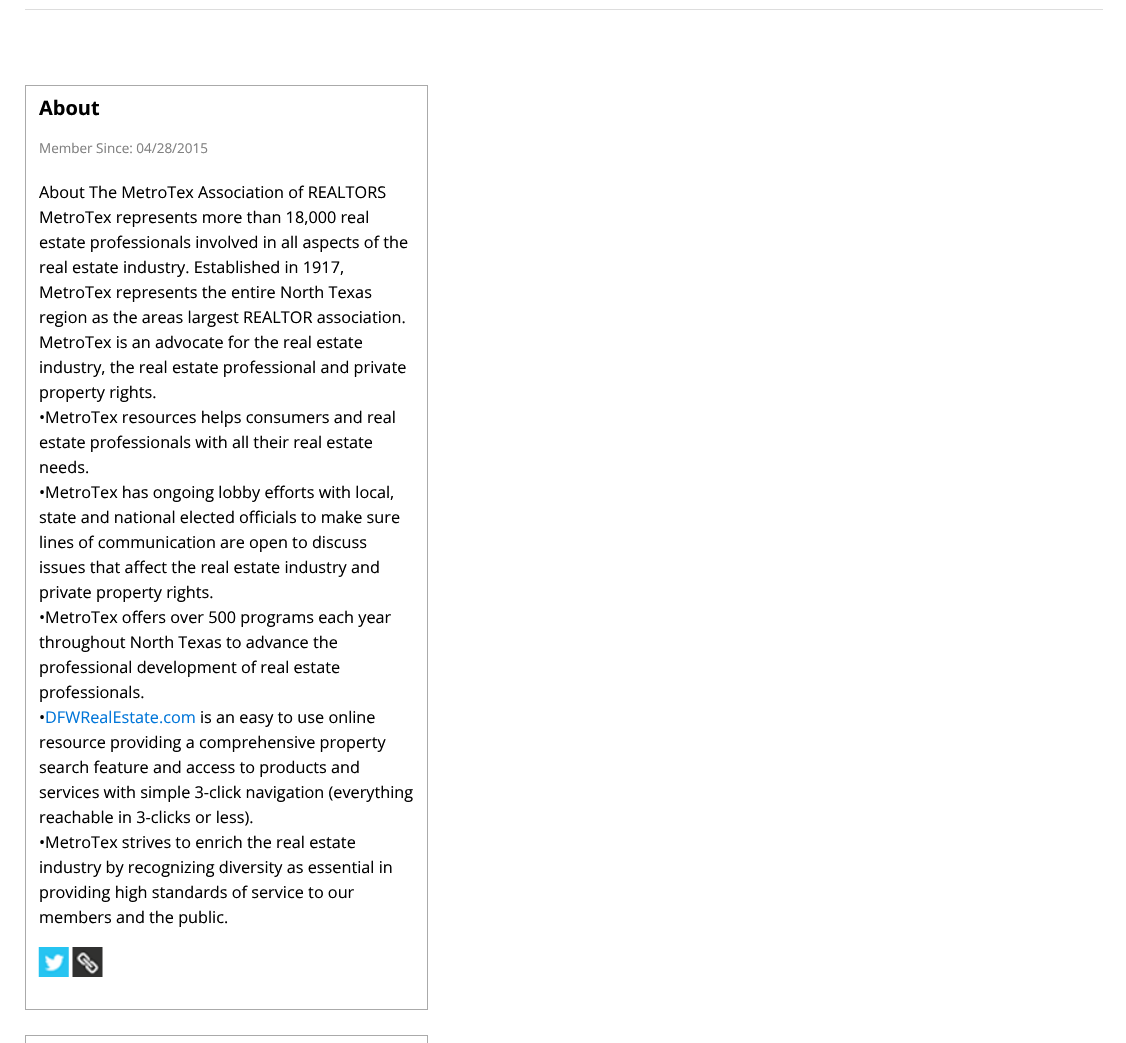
#include "include/core/SkBlurTypes.h"
#include "include/core/SkCanvas.h"
#include "include/core/SkData.h"
#include "include/core/SkFont.h"
#include "include/core/SkFontMgr.h"
#include "include/core/SkImage.h"
#include "include/core/SkMaskFilter.h"
#include "include/core/SkPaint.h"
#include "include/core/SkPathBuilder.h"
#include "include/core/SkTextBlob.h"
#include "include/effects/SkDashPathEffect.h"
#include "include/effects/SkGradientShader.h"
#include "include/utils/SkParsePath.h"

extern sk_sp<SkFontMgr> fontMgr;

static SkFont font(const char* family, int weight, float size, bool italic = false) {
    SkFontStyle style(weight, SkFontStyle::kNormal_Width,
        italic ? SkFontStyle::kItalic_Slant : SkFontStyle::kUpright_Slant);
    SkFont result(fontMgr->matchFamilyStyle(family, style), size);
    result.setSubpixel(true);
    return result;
}

static void drawLabel(SkCanvas* canvas, const char* s, float x, float y, const SkFont& font, SkColor color) {
    SkPaint ink(SkColor4f::FromColor(color));
    ink.setAntiAlias(true);
    canvas->drawString(s, x, y, font, ink);
}

static void fillRect(SkCanvas* canvas, float x, float y, float w, float h, SkColor color) {
    SkPaint ink(SkColor4f::FromColor(color));
    ink.setAntiAlias(true);
    canvas->drawRect(SkRect::MakeXYWH(x, y, w, h), ink);
}

static void drawPhoto(SkCanvas* canvas, const char* path, float x, float y, float w, float h) {
    auto image = SkImages::DeferredFromEncodedData(SkData::MakeFromFileName(path));
    canvas->drawImageRect(image, SkRect::MakeXYWH(x, y, w, h), SkSamplingOptions());
}

void draw(SkCanvas* canvas) {
    SkPaint paint;
    paint.setAntiAlias(true);
    canvas->clear(0xFFFFFFFF);
    fillRect(canvas, 25, 9, 1078, 1, 0xFFDDDDDD);
    paint.setStroke(true);
    paint.setStrokeWidth(1);
    paint.setColor(0xFFAAAAAA);
    canvas->drawRect(SkRect::MakeXYWH(25.5f, 85.5f, 402, 924), paint);
    SkFont font1 = font("Open Sans", 700, 20);
    drawLabel(canvas, "About", 39, 115, font1, 0xFF000000);
    SkFont font2 = font("Open Sans", 400, 13.5f);
    drawLabel(canvas, "Member Since: 04/28/2015", 39, 153, font2, 0xFF808080);
    SkFont font3 = font("Open Sans", 400, 16.25f);
    drawLabel(canvas, "About The MetroTex Association of REALTORS", 39, 198, font3, 0xFF000000);
    drawLabel(canvas, "MetroTex represents more than 18,000 real", 39, 223, font3, 0xFF000000);
    drawLabel(canvas, "estate professionals involved in all aspects of the", 39, 248, font3, 0xFF000000);
    drawLabel(canvas, "real estate industry. Established in 1917,", 39, 273, font3, 0xFF000000);
    drawLabel(canvas, "MetroTex represents the entire North Texas", 39, 298, font3, 0xFF000000);
    drawLabel(canvas, "region as the areas largest REALTOR association.", 39, 323, font3, 0xFF000000);
    drawLabel(canvas, "MetroTex is an advocate for the real estate", 39, 348, font3, 0xFF000000);
    drawLabel(canvas, "industry, the real estate professional and private", 39, 373, font3, 0xFF000000);
    drawLabel(canvas, "property rights.", 39, 398, font3, 0xFF000000);
    drawLabel(canvas, "•MetroTex resources helps consumers and real", 39, 423, font3, 0xFF000000);
    drawLabel(canvas, "estate professionals with all their real estate", 39, 448, font3, 0xFF000000);
    drawLabel(canvas, "needs.", 39, 473, font3, 0xFF000000);
    drawLabel(canvas, "•MetroTex has ongoing lobby efforts with local,", 39, 498, font3, 0xFF000000);
    drawLabel(canvas, "state and national elected officials to make sure", 39, 523, font3, 0xFF000000);
    drawLabel(canvas, "lines of communication are open to discuss", 39, 548, font3, 0xFF000000);
    drawLabel(canvas, "issues that affect the real estate industry and", 39, 573, font3, 0xFF000000);
    drawLabel(canvas, "private property rights.", 39, 598, font3, 0xFF000000);
    drawLabel(canvas, "•MetroTex offers over 500 programs each year", 39, 623, font3, 0xFF000000);
    drawLabel(canvas, "throughout North Texas to advance the", 39, 648, font3, 0xFF000000);
    drawLabel(canvas, "professional development of real estate", 39, 673, font3, 0xFF000000);
    drawLabel(canvas, "professionals.", 39, 698, font3, 0xFF000000);
    drawLabel(canvas, "•", 39, 723, font3, 0xFF000000);
    drawLabel(canvas, "DFWRealEstate.com", 45, 723, font3, 0xFF0176D9);
    drawLabel(canvas, "is an easy to use online", 200, 723, font3, 0xFF000000);
    drawLabel(canvas, "resource providing a comprehensive property", 39, 748, font3, 0xFF000000);
    drawLabel(canvas, "search feature and access to products and", 39, 773, font3, 0xFF000000);
    drawLabel(canvas, "services with simple 3-click navigation (everything", 39, 798, font3, 0xFF000000);
    drawLabel(canvas, "reachable in 3-clicks or less).", 39, 823, font3, 0xFF000000);
    drawLabel(canvas, "•MetroTex strives to enrich the real estate", 39, 848, font3, 0xFF000000);
    drawLabel(canvas, "industry by recognizing diversity as essential in", 39, 873, font3, 0xFF000000);
    drawLabel(canvas, "providing high standards of service to our", 39, 898, font3, 0xFF000000);
    drawLabel(canvas, "members and the public.", 39, 923, font3, 0xFF000000);
    drawPhoto(canvas, "assets/img1.png", 38, 947, 31, 30);
    drawPhoto(canvas, "assets/img2.png", 72, 947, 31, 30);
    canvas->drawRect(SkRect::MakeXYWH(25.5f, 1035.5f, 402, 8), paint);
}
